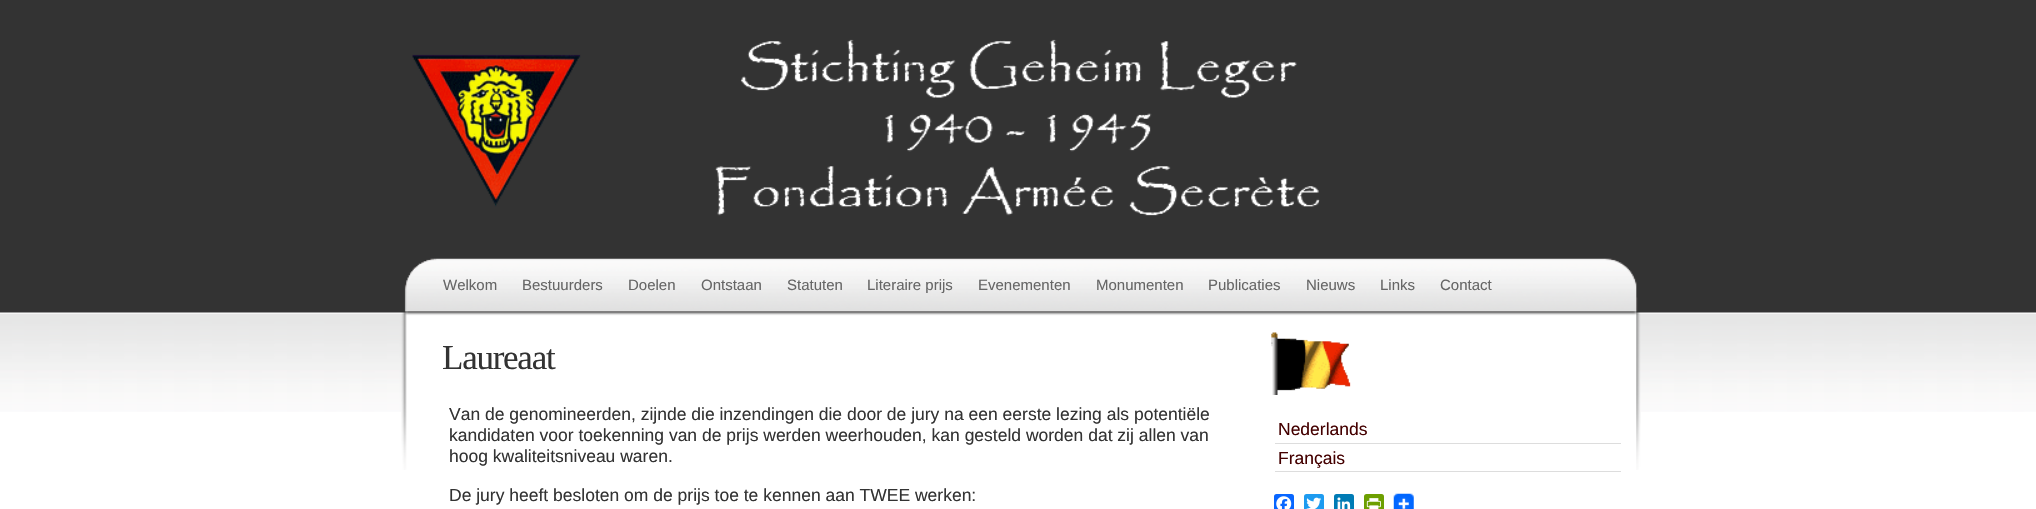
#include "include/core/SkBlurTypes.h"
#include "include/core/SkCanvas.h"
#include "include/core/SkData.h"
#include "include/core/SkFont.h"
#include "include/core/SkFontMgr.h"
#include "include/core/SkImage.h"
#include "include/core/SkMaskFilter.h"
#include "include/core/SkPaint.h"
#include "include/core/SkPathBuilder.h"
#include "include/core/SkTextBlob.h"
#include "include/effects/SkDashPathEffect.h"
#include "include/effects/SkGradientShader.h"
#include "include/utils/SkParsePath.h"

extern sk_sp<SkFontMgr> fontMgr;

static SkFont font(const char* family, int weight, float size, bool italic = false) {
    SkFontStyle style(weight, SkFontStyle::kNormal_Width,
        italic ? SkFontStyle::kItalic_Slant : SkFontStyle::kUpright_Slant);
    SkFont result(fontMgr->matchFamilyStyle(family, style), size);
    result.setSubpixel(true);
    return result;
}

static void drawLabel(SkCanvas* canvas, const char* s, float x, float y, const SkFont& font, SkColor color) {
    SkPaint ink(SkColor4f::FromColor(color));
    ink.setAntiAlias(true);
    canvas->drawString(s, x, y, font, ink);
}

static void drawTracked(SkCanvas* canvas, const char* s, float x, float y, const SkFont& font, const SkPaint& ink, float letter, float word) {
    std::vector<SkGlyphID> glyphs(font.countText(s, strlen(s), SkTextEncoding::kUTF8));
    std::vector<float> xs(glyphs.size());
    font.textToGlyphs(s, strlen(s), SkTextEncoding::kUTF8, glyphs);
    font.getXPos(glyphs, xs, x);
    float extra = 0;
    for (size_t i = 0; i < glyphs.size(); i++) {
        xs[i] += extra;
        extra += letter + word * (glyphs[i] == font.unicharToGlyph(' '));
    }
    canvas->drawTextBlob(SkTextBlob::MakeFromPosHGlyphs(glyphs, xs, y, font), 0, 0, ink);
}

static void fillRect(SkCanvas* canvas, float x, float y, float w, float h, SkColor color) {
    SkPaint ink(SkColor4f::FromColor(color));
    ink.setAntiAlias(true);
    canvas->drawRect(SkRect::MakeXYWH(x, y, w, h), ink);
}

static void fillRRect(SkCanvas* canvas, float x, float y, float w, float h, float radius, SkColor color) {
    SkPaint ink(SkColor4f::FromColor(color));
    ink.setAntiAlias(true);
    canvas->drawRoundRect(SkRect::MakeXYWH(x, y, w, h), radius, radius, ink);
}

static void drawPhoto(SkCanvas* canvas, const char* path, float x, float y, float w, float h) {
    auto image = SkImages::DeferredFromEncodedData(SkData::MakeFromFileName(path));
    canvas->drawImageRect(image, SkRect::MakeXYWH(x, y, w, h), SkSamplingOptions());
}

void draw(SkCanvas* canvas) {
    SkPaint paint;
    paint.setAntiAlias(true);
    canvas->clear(0xFFFFFFFF);
    drawPhoto(canvas, "assets/img1.png", 0, 0, 2036, 412);
    drawPhoto(canvas, "assets/img2.png", 401, 258, 1240, 212);
    drawPhoto(canvas, "assets/img3.png", 412, 39, 908, 177);
    SkFont font1 = font("Liberation Sans", 400, 15);
    drawLabel(canvas, "Welkom", 443, 290, font1, 0xFF666666);
    drawLabel(canvas, "Bestuurders", 522, 290, font1, 0xFF666666);
    drawLabel(canvas, "Doelen", 628, 290, font1, 0xFF666666);
    drawLabel(canvas, "Ontstaan", 701, 290, font1, 0xFF666666);
    drawLabel(canvas, "Statuten", 787, 290, font1, 0xFF666666);
    drawLabel(canvas, "Literaire prijs", 867, 290, font1, 0xFF666666);
    drawLabel(canvas, "Evenementen", 978, 290, font1, 0xFF666666);
    drawLabel(canvas, "Monumenten", 1096, 290, font1, 0xFF666666);
    drawLabel(canvas, "Publicaties", 1208, 290, font1, 0xFF666666);
    drawLabel(canvas, "Nieuws", 1306, 290, font1, 0xFF666666);
    drawLabel(canvas, "Links", 1380, 290, font1, 0xFF666666);
    drawLabel(canvas, "Contact", 1440, 290, font1, 0xFF666666);
    SkFont font2 = font("Liberation Serif", 400, 35);
    paint.setColor(0xFF333333);
    drawTracked(canvas, "Laureaat", 442, 369, font2, paint, -1.25f, 0);
    SkFont font3 = font("Liberation Sans", 400, 17.5f);
    drawLabel(canvas, "Van de genomineerden, zijnde die inzendingen die door de jury na een eerste lezing als potentiële", 449, 420, font3, 0xFF333333);
    drawLabel(canvas, "kandidaten voor toekenning van de prijs werden weerhouden, kan gesteld worden dat zij allen van", 449, 441, font3, 0xFF333333);
    drawLabel(canvas, "hoog kwaliteitsniveau waren.", 449, 462, font3, 0xFF333333);
    drawLabel(canvas, "De jury heeft besloten om de prijs toe te kennen aan TWEE werken:", 449, 501, font3, 0xFF333333);
    drawPhoto(canvas, "assets/img4.png", 1271, 332, 80, 63);
    fillRect(canvas, 1275, 443, 346, 1, 0xFFDDDDDD);
    drawLabel(canvas, "Nederlands", 1278, 435, font3, 0xFF440000);
    fillRect(canvas, 1275, 471, 346, 1, 0xFFDDDDDD);
    drawLabel(canvas, "Français", 1278, 464, font3, 0xFF440000);
    fillRRect(canvas, 1274, 494, 20, 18, 2.5f, 0xFF0866FF);
    drawPhoto(canvas, "assets/img5.png", 1276, 496, 16, 13);
    fillRRect(canvas, 1304, 494, 20, 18, 2.5f, 0xFF1D9BF0);
    drawPhoto(canvas, "assets/img6.png", 1306, 497, 16, 12);
    fillRRect(canvas, 1334, 494, 20, 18, 2.5f, 0xFF007BB5);
    drawPhoto(canvas, "assets/img7.png", 1337, 497, 14, 12);
    fillRRect(canvas, 1364, 494, 20, 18, 2.5f, 0xFF6D9F00);
    drawPhoto(canvas, "assets/img8.png", 1366, 498, 15, 11);
    drawPhoto(canvas, "assets/img9.png", 1393, 493, 21, 16);
}
